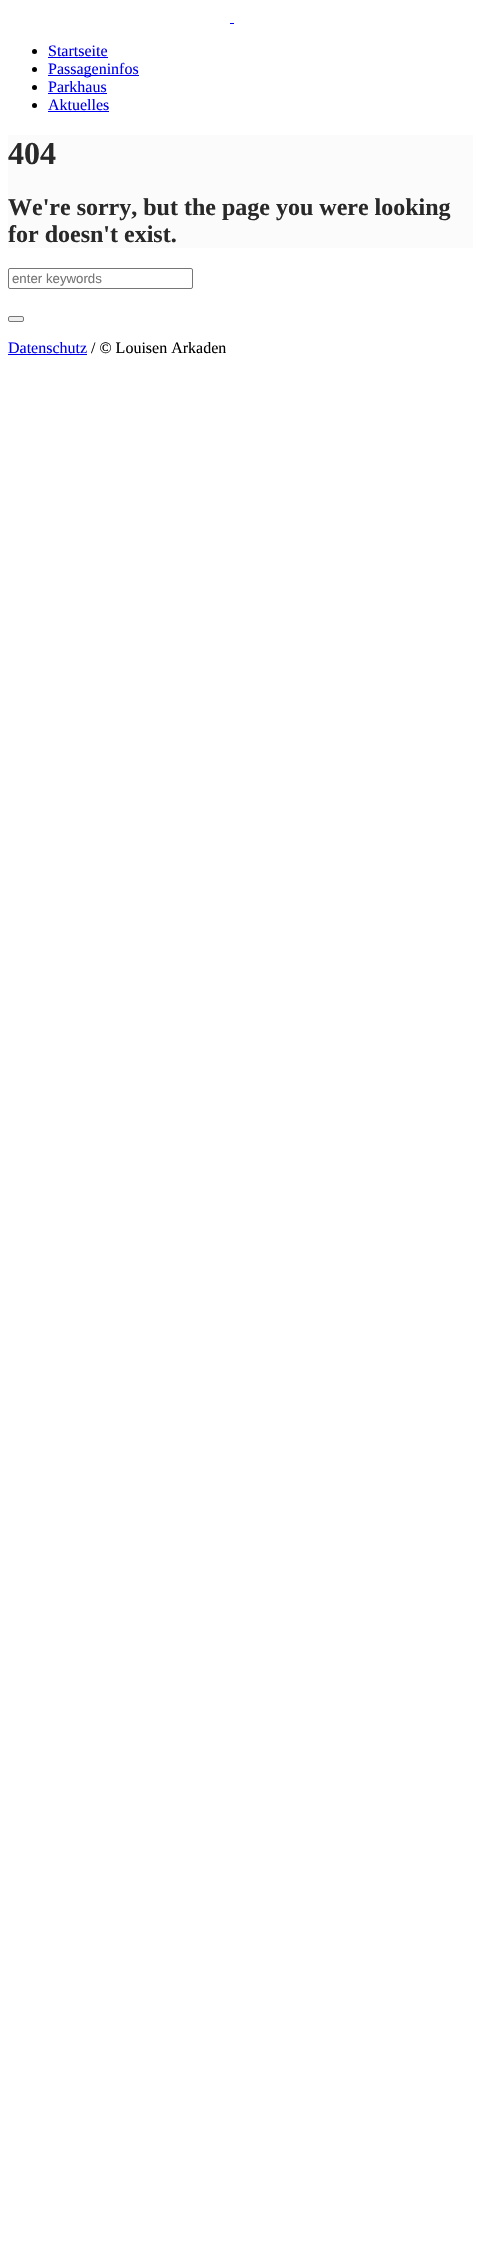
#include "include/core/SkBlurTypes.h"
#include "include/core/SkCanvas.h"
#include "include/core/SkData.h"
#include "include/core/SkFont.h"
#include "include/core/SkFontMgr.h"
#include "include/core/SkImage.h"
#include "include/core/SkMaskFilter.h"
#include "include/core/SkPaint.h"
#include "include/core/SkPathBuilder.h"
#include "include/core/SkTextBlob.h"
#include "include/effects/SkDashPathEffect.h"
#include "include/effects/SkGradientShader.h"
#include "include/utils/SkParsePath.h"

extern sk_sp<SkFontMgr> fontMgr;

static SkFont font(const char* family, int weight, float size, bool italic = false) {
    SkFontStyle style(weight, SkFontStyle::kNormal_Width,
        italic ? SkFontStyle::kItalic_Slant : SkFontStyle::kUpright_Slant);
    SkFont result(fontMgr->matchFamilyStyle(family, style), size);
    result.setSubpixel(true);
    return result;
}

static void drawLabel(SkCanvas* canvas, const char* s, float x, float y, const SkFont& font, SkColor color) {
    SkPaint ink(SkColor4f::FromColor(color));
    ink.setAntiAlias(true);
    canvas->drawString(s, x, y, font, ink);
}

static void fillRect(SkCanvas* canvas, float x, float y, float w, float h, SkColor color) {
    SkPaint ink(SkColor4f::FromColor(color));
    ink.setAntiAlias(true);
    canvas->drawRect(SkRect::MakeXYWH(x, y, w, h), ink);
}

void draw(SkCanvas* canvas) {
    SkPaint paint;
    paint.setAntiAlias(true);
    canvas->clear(0xFFFFFFFF);
    fillRect(canvas, 230, 23, 4, 1, 0xFF0000EE);
    paint.setColor(0xFF000000);
    canvas->drawCircle(34.5f, 51.5f, 2.5f, paint);
    SkFont font1 = font("Liberation Serif", 400, 16);
    drawLabel(canvas, "Startseite", 48, 56, font1, 0xFF0000EE);
    fillRect(canvas, 48, 57, 60, 1, 0xFF0000EE);
    canvas->drawCircle(34.5f, 69.5f, 2.5f, paint);
    fillRect(canvas, 48, 75, 91, 1, 0xFF0000EE);
    drawLabel(canvas, "Passageninfos", 48, 74, font1, 0xFF0000EE);
    canvas->drawCircle(34.5f, 87.5f, 2.5f, paint);
    drawLabel(canvas, "Parkhaus", 48, 92, font1, 0xFF0000EE);
    fillRect(canvas, 48, 93, 59, 1, 0xFF0000EE);
    canvas->drawCircle(34.5f, 105.5f, 2.5f, paint);
    drawLabel(canvas, "Aktuelles", 48, 110, font1, 0xFF0000EE);
    fillRect(canvas, 48, 111, 61, 1, 0xFF0000EE);
    fillRect(canvas, 8, 135, 465, 113, 0xFFFBFBFB);
    SkFont font2 = font("Liberation Serif", 700, 32);
    drawLabel(canvas, "404", 8, 164, font2, 0xFF292929);
    SkFont font3 = font("Liberation Serif", 700, 24);
    drawLabel(canvas, "We're sorry, but the page you were looking", 8, 215, font3, 0xFF292929);
    drawLabel(canvas, "for doesn't exist.", 8, 242, font3, 0xFF292929);
    paint.setStroke(true);
    paint.setStrokeWidth(1);
    paint.setColor(0xFF767676);
    canvas->drawRoundRect(SkRect::MakeXYWH(8.5f, 268.5f, 184, 20), 1.5f, 1.5f, paint);
    SkFont font4 = font("Liberation Sans", 400, 13.25f);
    drawLabel(canvas, "enter keywords", 12, 283, font4, 0xFF757575);
    paint.setStroke(false);
    paint.setColor(0xFFEFEFEF);
    canvas->drawRoundRect(SkRect::MakeXYWH(8.5f, 316.5f, 15, 5), 1.5f, 1.5f, paint);
    paint.setStroke(true);
    paint.setColor(0xFF767676);
    canvas->drawRoundRect(SkRect::MakeXYWH(8.5f, 316.5f, 15, 5), 1.5f, 1.5f, paint);
    drawLabel(canvas, "Datenschutz", 8, 353, font1, 0xFF0000EE);
    fillRect(canvas, 8, 354, 79, 1, 0xFF0000EE);
    drawLabel(canvas, "/ © Louisen Arkaden", 91, 353, font1, 0xFF000000);
}
